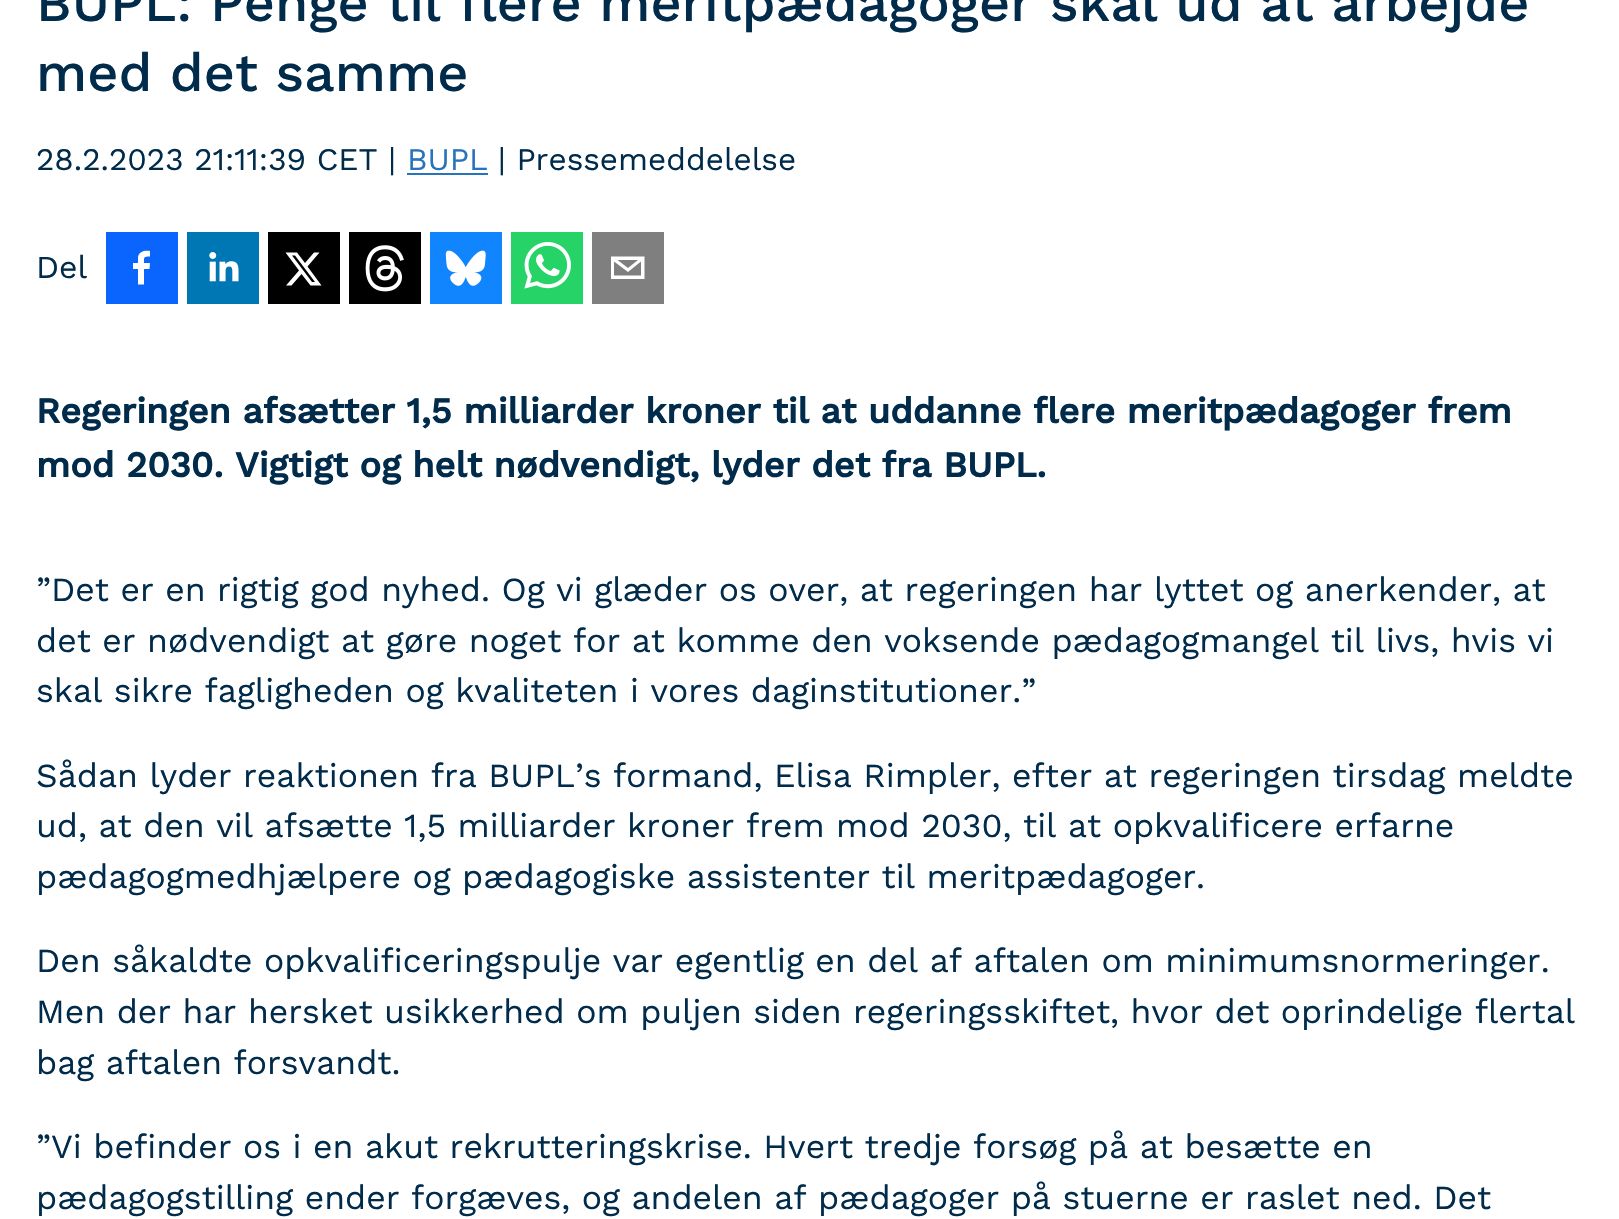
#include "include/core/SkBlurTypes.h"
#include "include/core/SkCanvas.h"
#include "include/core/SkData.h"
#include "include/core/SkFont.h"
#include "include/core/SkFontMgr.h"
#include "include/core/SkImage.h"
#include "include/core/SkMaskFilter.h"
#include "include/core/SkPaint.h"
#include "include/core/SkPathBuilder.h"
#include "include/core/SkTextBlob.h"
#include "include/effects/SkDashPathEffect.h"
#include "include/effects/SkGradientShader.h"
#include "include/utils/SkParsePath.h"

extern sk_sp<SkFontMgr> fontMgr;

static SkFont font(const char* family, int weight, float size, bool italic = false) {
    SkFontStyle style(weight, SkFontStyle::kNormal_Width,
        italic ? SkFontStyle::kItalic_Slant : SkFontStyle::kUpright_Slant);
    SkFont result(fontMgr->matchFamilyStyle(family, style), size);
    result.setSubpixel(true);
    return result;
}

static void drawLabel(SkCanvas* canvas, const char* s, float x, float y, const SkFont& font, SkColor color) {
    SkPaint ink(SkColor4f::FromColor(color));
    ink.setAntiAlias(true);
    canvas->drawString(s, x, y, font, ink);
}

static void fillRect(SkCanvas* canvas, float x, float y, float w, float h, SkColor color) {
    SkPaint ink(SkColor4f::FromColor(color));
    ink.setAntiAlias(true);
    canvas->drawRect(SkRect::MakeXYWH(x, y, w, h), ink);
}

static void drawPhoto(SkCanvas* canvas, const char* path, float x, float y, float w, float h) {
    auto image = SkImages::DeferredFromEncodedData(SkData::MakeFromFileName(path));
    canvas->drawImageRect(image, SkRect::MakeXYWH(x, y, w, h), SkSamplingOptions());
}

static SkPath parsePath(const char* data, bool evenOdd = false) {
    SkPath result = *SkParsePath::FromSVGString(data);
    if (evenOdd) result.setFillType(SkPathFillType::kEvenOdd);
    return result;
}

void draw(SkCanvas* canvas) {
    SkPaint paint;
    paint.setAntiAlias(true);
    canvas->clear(0xFFFFFFFF);
    SkFont font1 = font("Work Sans", 500, 54);
    drawLabel(canvas, "BUPL: Penge til flere meritpædagoger skal ud at arbejde", 36, 21, font1, 0xFF002B4B);
    drawLabel(canvas, "med det samme", 36, 91, font1, 0xFF002B4B);
    SkFont font2 = font("Work Sans", 400, 31.5f);
    drawLabel(canvas, "28.2.2023 21:11:39 CET |", 36, 170, font2, 0xFF002B4B);
    drawLabel(canvas, "BUPL", 407, 170, font2, 0xFF2973BA);
    fillRect(canvas, 407, 173, 81, 2, 0xFF2973BA);
    drawLabel(canvas, "| Pressemeddelelse", 498, 170, font2, 0xFF002B4B);
    SkFont font3 = font("Work Sans", 400, 32);
    drawLabel(canvas, "Del", 36, 278, font3, 0xFF002B4B);
    fillRect(canvas, 106, 232, 72, 72, 0xFF0965FE);
    paint.setColor(0xFFFFFFFF);
    canvas->drawPath(parsePath("M144 284.5V269H149.5L150 263H144C144 257 143.5 256.5 150 256.5V251C145.5 250 139 251 138 257V263H133V269H138V284.5Z"), paint);
    drawPhoto(canvas, "assets/img1.png", 187, 232, 72, 72);
    fillRect(canvas, 268, 232, 72, 72, 0xFF000000);
    canvas->drawPath(parsePath("M314 252.5H319.5L307.5 266.5L321.5 285.5H310.5L301.5 274L291.5 285.5H286L299 270.5L285.5 252.5H297L305 263ZM312 282H315L295 255.5H292Z"), paint);
    drawPhoto(canvas, "assets/img2.png", 349, 232, 72, 72);
    drawPhoto(canvas, "assets/img3.png", 430, 232, 72, 72);
    drawPhoto(canvas, "assets/img4.png", 511, 232, 72, 72);
    fillRect(canvas, 592, 232, 72, 72, 0xFF7F7F7F);
    canvas->drawPath(parsePath("M611 256.5V279H644.5V256.5ZM638 260L628 268L617.5 260ZM614 275.5V261.5L628 272L641 261.5V275.5Z"), paint);
    SkFont font4 = font("Work Sans", 700, 36);
    drawLabel(canvas, "Regeringen afsætter 1,5 milliarder kroner til at uddanne flere meritpædagoger frem", 36, 423, font4, 0xFF002B4B);
    drawLabel(canvas, "mod 2030. Vigtigt og helt nødvendigt, lyder det fra BUPL.", 36, 477, font4, 0xFF002B4B);
    SkFont font5 = font("Work Sans", 400, 33.75f);
    drawLabel(canvas, "”Det er en rigtig god nyhed. Og vi glæder os over, at regeringen har lyttet og anerkender, at", 36, 601, font5, 0xFF002B4B);
    drawLabel(canvas, "det er nødvendigt at gøre noget for at komme den voksende pædagogmangel til livs, hvis vi", 36, 652, font5, 0xFF002B4B);
    drawLabel(canvas, "skal sikre fagligheden og kvaliteten i vores daginstitutioner.”", 36, 702, font5, 0xFF002B4B);
    drawLabel(canvas, "Sådan lyder reaktionen fra BUPL’s formand, Elisa Rimpler, efter at regeringen tirsdag meldte", 36, 787, font5, 0xFF002B4B);
    drawLabel(canvas, "ud, at den vil afsætte 1,5 milliarder kroner frem mod 2030, til at opkvalificere erfarne", 36, 837, font5, 0xFF002B4B);
    drawLabel(canvas, "pædagogmedhjælpere og pædagogiske assistenter til meritpædagoger.", 36, 888, font5, 0xFF002B4B);
    drawLabel(canvas, "Den såkaldte opkvalificeringspulje var egentlig en del af aftalen om minimumsnormeringer.", 36, 972, font5, 0xFF002B4B);
    drawLabel(canvas, "Men der har hersket usikkerhed om puljen siden regeringsskiftet, hvor det oprindelige flertal", 36, 1023, font5, 0xFF002B4B);
    drawLabel(canvas, "bag aftalen forsvandt.", 36, 1074, font5, 0xFF002B4B);
    drawLabel(canvas, "”Vi befinder os i en akut rekrutteringskrise. Hvert tredje forsøg på at besætte en", 36, 1158, font5, 0xFF002B4B);
    drawLabel(canvas, "pædagogstilling ender forgæves, og andelen af pædagoger på stuerne er raslet ned. Det", 36, 1209, font5, 0xFF002B4B);
}
